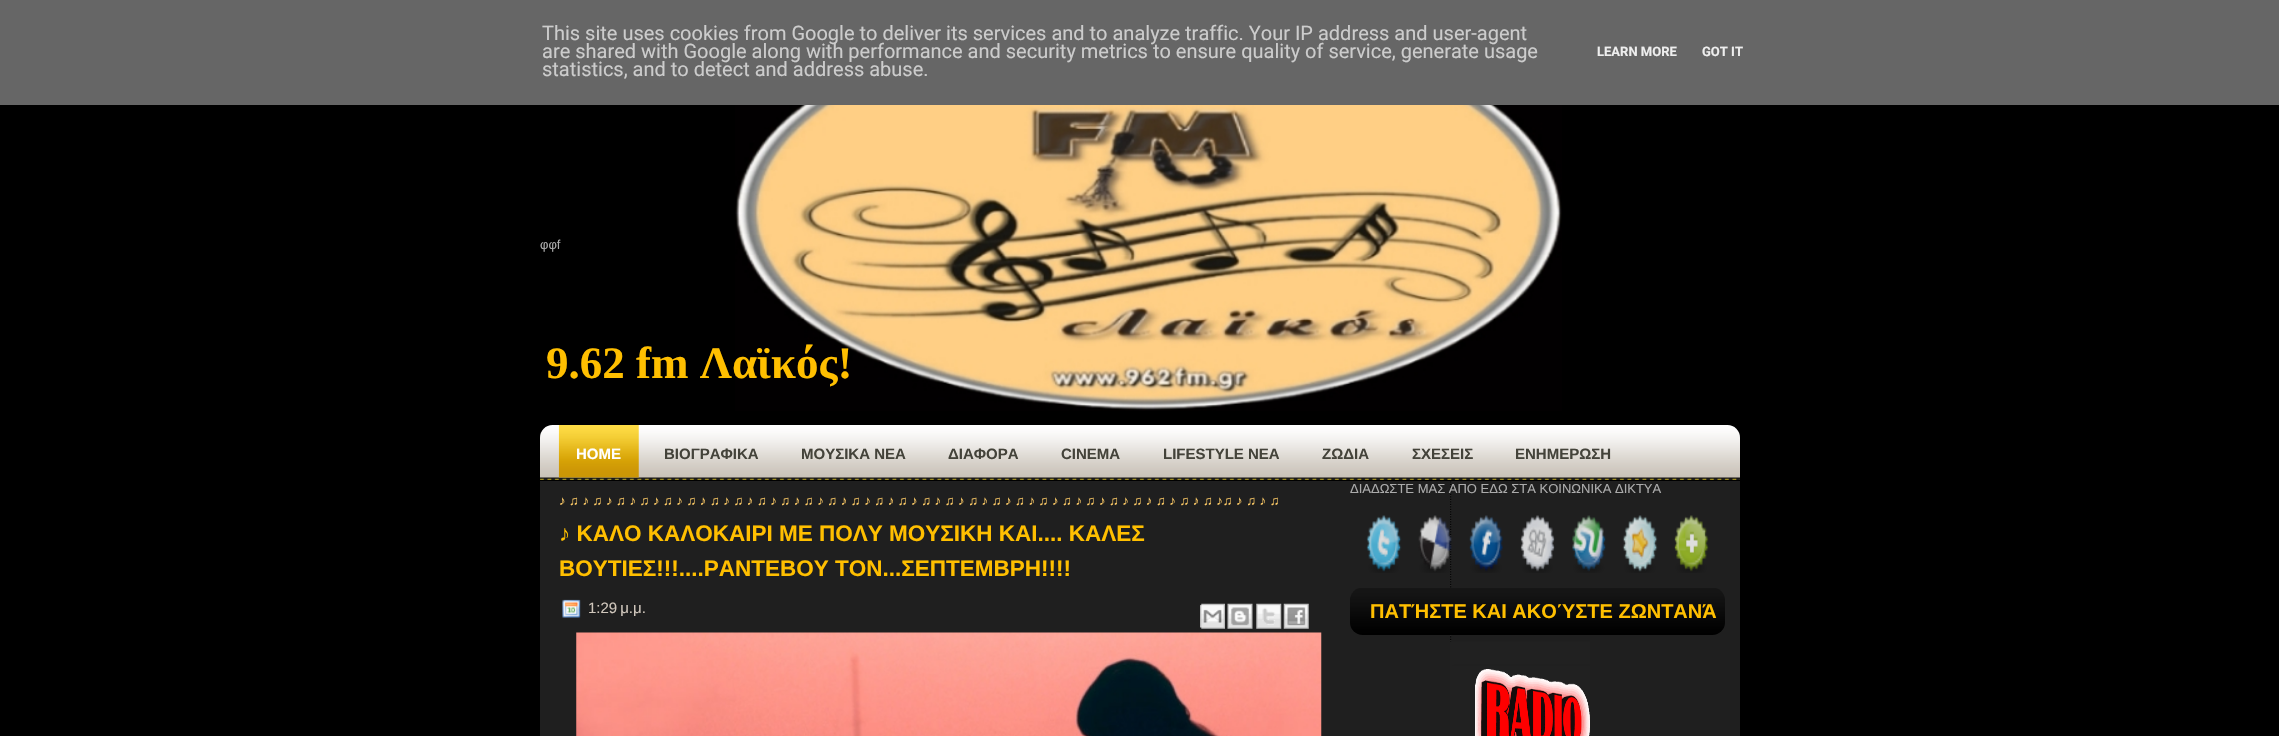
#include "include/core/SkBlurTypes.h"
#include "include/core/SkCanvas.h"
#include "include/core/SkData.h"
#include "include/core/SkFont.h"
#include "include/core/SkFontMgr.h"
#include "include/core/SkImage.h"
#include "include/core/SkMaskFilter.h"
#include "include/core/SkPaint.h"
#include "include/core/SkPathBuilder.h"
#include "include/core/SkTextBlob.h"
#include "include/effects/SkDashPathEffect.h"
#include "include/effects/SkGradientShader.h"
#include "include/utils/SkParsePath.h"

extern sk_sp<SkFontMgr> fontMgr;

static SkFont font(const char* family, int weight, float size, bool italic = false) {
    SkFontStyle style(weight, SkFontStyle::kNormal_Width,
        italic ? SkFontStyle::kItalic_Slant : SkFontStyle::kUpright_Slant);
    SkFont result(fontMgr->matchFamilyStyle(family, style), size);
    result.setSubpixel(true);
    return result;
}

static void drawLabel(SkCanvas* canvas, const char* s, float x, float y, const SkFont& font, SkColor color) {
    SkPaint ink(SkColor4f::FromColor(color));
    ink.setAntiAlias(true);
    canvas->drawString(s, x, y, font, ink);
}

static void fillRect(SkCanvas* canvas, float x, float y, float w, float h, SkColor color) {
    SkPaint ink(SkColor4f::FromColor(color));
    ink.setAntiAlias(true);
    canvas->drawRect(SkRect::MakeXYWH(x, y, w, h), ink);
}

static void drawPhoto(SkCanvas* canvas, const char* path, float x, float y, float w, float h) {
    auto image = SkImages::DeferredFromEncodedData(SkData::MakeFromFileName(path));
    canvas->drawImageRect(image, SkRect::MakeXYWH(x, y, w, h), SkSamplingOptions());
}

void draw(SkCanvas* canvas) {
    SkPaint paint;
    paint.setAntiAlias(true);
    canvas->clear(0xFF000000);
    fillRect(canvas, 0, 0, 2279, 105, 0xFF666666);
    SkFont font1 = font("Roboto", 400, 20);
    drawLabel(canvas, "This site uses cookies from Google to deliver its services and to analyze traffic. Your IP address and user-agent", 542, 40, font1, 0xFFCCCCCC);
    drawLabel(canvas, "are shared with Google along with performance and security metrics to ensure quality of service, generate usage", 542, 58, font1, 0xFFCCCCCC);
    drawLabel(canvas, "statistics, and to detect and address abuse.", 542, 76, font1, 0xFFCCCCCC);
    SkFont font2 = font("Roboto", 700, 13);
    drawLabel(canvas, "LEARN MORE", 1597, 56, font2, 0xFFEEEEEE);
    drawLabel(canvas, "GOT IT", 1702, 56, font2, 0xFFEEEEEE);
    drawPhoto(canvas, "assets/img1.png", 735, 105, 827, 306);
    SkFont font3 = font("Liberation Sans", 400, 13);
    drawLabel(canvas, "φφf", 540, 249, font3, 0xFFABABAB);
    SkFont font4 = font("Liberation Serif", 700, 45);
    drawLabel(canvas, "9.62 fm Λαϊκός!", 546, 378, font4, 0xFFFFBF00);
    drawPhoto(canvas, "assets/img2.png", 540, 425, 1200, 55);
    drawPhoto(canvas, "assets/img3.png", 558, 425, 81, 53);
    SkFont font5 = font("Liberation Sans", 700, 15);
    drawLabel(canvas, "HOME", 576, 459, font5, 0xFFFFFFFF);
    drawLabel(canvas, "ΒΙΟΓΡΑΦΙΚΑ", 664, 459, font5, 0xFF44433A);
    drawLabel(canvas, "ΜΟΥΣΙΚΑ ΝΕΑ", 801, 459, font5, 0xFF44433A);
    drawLabel(canvas, "ΔΙΑΦΟΡΑ", 948, 459, font5, 0xFF44433A);
    drawLabel(canvas, "CINEMA", 1061, 459, font5, 0xFF44433A);
    drawLabel(canvas, "LIFESTYLE ΝΕΑ", 1163, 459, font5, 0xFF44433A);
    drawLabel(canvas, "ΖΩΔΙΑ", 1322, 459, font5, 0xFF44433A);
    drawLabel(canvas, "ΣΧΕΣΕΙΣ", 1412, 459, font5, 0xFF44433A);
    drawLabel(canvas, "ΕΝΗΜΕΡΩΣΗ", 1515, 459, font5, 0xFF44433A);
    fillRect(canvas, 540, 481, 1200, 255, 0xFF1F1F1F);
    drawPhoto(canvas, "assets/img4.png", 1450, 481, 2, 161);
    drawLabel(canvas, "♪ ♫ ♪ ♫ ♪ ♫ ♪ ♫ ♪ ♫ ♪ ♫ ♪ ♫ ♪ ♫ ♪ ♫ ♪ ♫ ♪ ♫ ♪ ♫ ♪ ♫ ♪ ♫ ♪ ♫ ♪ ♫ ♪ ♫ ♪ ♫ ♪ ♫ ♪ ♫ ♪ ♫ ♪ ♫ ♪ ♫ ♪ ♫ ♪ ♫ ♪ ♫ ♪ ♫ ♪ ♫ ♪♫ ♪ ♫ ♪ ♫", 559, 505, font3, 0xFFFFCC66);
    SkFont font6 = font("Liberation Sans", 700, 22.5f);
    drawLabel(canvas, "♪ ΚΑΛΟ ΚΑΛΟΚΑΙΡΙ ΜΕ ΠΟΛΥ ΜΟΥΣΙΚΗ ΚΑΙ.... ΚΑΛΕΣ", 559, 541, font6, 0xFFFFBF00);
    drawLabel(canvas, "ΒΟΥΤΙΕΣ!!!....ΡΑΝΤΕΒΟΥ ΤΟΝ...ΣΕΠΤΕΜΒΡΗ!!!!", 559, 576, font6, 0xFFFFBF00);
    drawPhoto(canvas, "assets/img5.png", 562, 599, 19, 19);
    SkFont font7 = font("Liberation Sans", 400, 15);
    drawLabel(canvas, "1:29 μ.μ.", 588, 613, font7, 0xFFD0C7BC);
    drawPhoto(canvas, "assets/img6.png", 1200, 603, 25, 26);
    drawPhoto(canvas, "assets/img7.png", 1227, 603, 26, 26);
    drawPhoto(canvas, "assets/img8.png", 1256, 603, 26, 26);
    drawPhoto(canvas, "assets/img9.png", 1283, 603, 26, 26);
    drawPhoto(canvas, "assets/img10.png", 576, 632, 746, 104);
    drawLabel(canvas, "ΔΙΑΔΩΣΤΕ ΜΑΣ ΑΠΟ ΕΔΩ ΣΤΑ ΚΟΙΝΩΝΙΚΑ ΔΙΚΤΥΑ", 1350, 493, font3, 0xFFABABAB);
    drawPhoto(canvas, "assets/img11.png", 1366, 515, 36, 58);
    drawPhoto(canvas, "assets/img12.png", 1418, 515, 34, 58);
    drawPhoto(canvas, "assets/img13.png", 1469, 515, 34, 58);
    drawPhoto(canvas, "assets/img14.png", 1520, 515, 35, 58);
    drawPhoto(canvas, "assets/img15.png", 1572, 515, 34, 58);
    drawPhoto(canvas, "assets/img16.png", 1622, 515, 36, 58);
    drawPhoto(canvas, "assets/img17.png", 1674, 515, 35, 58);
    drawPhoto(canvas, "assets/img18.png", 1350, 588, 375, 47);
    SkFont font8 = font("Liberation Sans", 700, 20);
    drawLabel(canvas, "ΠΑΤΉΣΤΕ ΚΑΙ ΑΚΟΎΣΤΕ ΖΩΝΤΑΝΆ", 1370, 618, font8, 0xFFFFBF00);
    drawPhoto(canvas, "assets/img19.png", 1450, 641, 140, 95);
}
